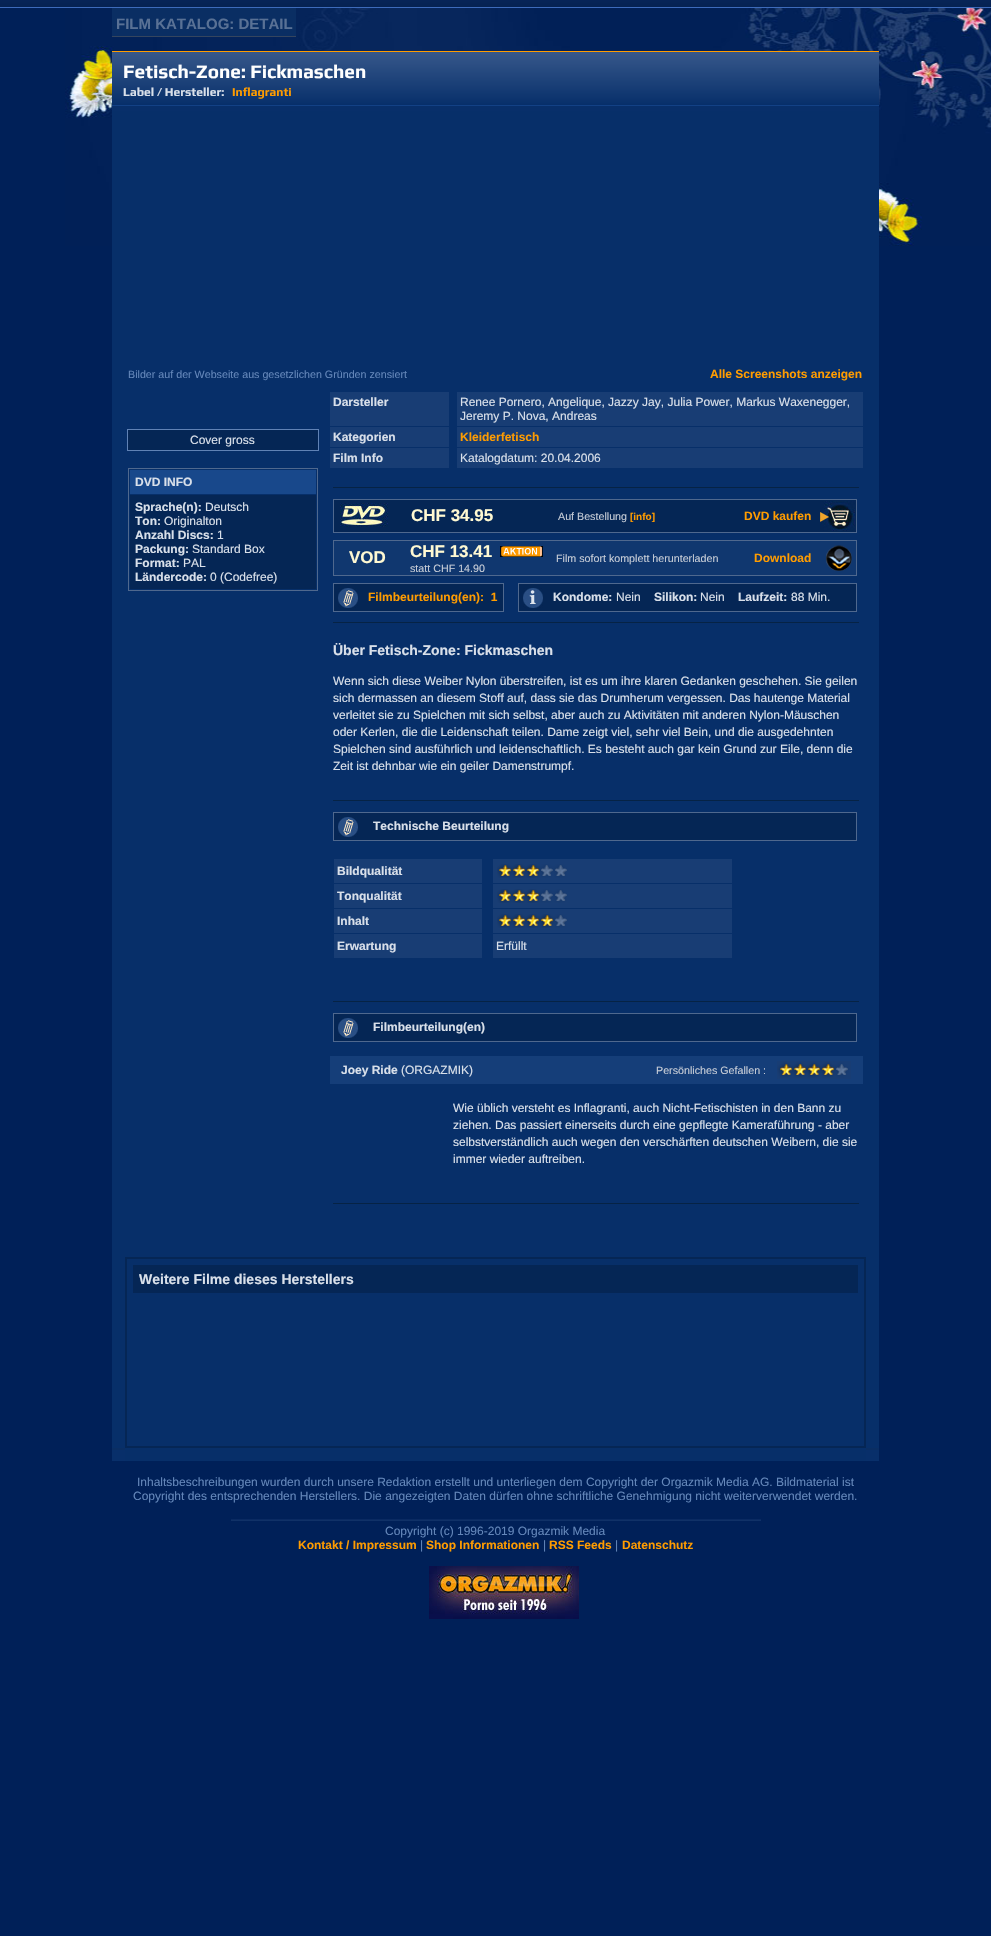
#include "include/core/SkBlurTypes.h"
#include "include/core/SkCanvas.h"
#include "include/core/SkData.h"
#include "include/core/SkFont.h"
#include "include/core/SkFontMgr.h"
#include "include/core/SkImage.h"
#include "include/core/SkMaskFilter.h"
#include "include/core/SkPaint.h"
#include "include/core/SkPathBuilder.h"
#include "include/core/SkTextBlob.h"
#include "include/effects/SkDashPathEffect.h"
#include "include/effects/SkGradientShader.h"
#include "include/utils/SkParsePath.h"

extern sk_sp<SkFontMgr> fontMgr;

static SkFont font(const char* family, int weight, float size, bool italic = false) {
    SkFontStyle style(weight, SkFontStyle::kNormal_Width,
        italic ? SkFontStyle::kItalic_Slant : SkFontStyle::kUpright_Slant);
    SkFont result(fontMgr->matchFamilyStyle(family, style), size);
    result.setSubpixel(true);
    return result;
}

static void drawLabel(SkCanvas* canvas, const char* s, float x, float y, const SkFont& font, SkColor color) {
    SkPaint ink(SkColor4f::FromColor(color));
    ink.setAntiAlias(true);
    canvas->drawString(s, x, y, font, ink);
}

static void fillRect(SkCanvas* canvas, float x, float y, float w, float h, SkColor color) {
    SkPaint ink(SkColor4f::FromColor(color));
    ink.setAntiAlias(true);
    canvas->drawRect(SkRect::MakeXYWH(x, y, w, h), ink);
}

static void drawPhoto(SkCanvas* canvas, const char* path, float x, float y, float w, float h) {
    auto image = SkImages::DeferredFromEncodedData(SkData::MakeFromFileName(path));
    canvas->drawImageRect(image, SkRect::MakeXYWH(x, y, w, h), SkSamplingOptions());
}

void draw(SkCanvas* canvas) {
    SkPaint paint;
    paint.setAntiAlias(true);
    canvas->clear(0xFF002058);
    drawPhoto(canvas, "assets/img1.png", 65, 8, 926, 238);
    {
        const SkColor colors[] = {0xFF0A2D67, 0xFF062252};
        const float stops[] = {0, 1};
        const SkPoint ends[] = {{0, -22}, {0, 7}};
        paint.setShader(SkGradientShader::MakeLinear(ends, colors, stops, 2, SkTileMode::kClamp));
        paint.setAlpha(255);
    }
    canvas->drawRect(SkRect::MakeXYWH(0, 0, 991, 7), paint);
    fillRect(canvas, 0, 7, 991, 1, 0xFF3D6BBB);
    fillRect(canvas, 112, 8, 184, 28, 0xFF0A2E63);
    fillRect(canvas, 112, 36, 184, 1, 0xFF35455E);
    SkFont font1 = font("Liberation Sans", 700, 15);
    drawLabel(canvas, "FILM KATALOG: DETAIL", 116, 29, font1, 0xFF597195);
    fillRect(canvas, 112, 1448, 767, 2, 0xFF0A2E63);
    fillRect(canvas, 112, 51, 767, 1, 0xFFFF9C00);
    fillRect(canvas, 112, 52, 767, 1, 0xFF355789);
    {
        const SkColor colors[] = {0xFF36578A, 0xFF072F6A};
        const float stops[] = {0, 1};
        const SkPoint ends[] = {{112, 53}, {112, 105}};
        paint.setShader(SkGradientShader::MakeLinear(ends, colors, stops, 2, SkTileMode::kClamp));
        paint.setAlpha(255);
    }
    canvas->drawRect(SkRect::MakeXYWH(112, 53, 767, 52), paint);
    fillRect(canvas, 112, 105, 767, 1, 0xFF134185);
    SkFont font2 = font("Play", 700, 19);
    drawLabel(canvas, "Fetisch-Zone: Fickmaschen", 123, 78, font2, 0xFFFFFFFF);
    SkFont font3 = font("Play", 700, 12);
    drawLabel(canvas, "Label / Hersteller:", 123, 96, font3, 0xFFD9E0EA);
    drawLabel(canvas, "Inflagranti", 232, 96, font3, 0xFFFF9C00);
    fillRect(canvas, 112, 106, 767, 5, 0xFF082F6A);
    fillRect(canvas, 112, 111, 767, 8, 0xFF072F69);
    fillRect(canvas, 112, 119, 13, 1329, 0xFF072F69);
    fillRect(canvas, 125, 119, 741, 1327, 0xFF072F69);
    SkFont font4 = font("Liberation Sans", 400, 10.7f);
    drawLabel(canvas, "Bilder auf der Webseite aus gesetzlichen Gründen zensiert", 128, 378, font4, 0xFF6487BA);
    SkFont font5 = font("Liberation Sans", 700, 12);
    drawLabel(canvas, "Alle Screenshots anzeigen", 710, 378, font5, 0xFFFF9C00);
    paint.setShader(nullptr);
    paint.setColor(0xFF052655);
    canvas->drawRect(SkRect::MakeXYWH(127.5f, 429.5f, 191, 21), paint);
    paint.setStroke(true);
    paint.setStrokeWidth(1);
    paint.setColor(0xFF6082B5);
    canvas->drawRect(SkRect::MakeXYWH(127.5f, 429.5f, 191, 21), paint);
    SkFont font6 = font("Liberation Sans", 400, 12);
    drawLabel(canvas, "Cover gross", 190, 444, font6, 0xFFD9E0EA);
    paint.setColor(0xFF4F688E);
    canvas->drawRect(SkRect::MakeXYWH(128.5f, 468.5f, 189, 122), paint);
    fillRect(canvas, 130, 470, 186, 24, 0xFF18488B);
    drawLabel(canvas, "DVD INFO", 135, 486, font5, 0xFFD9E0EA);
    fillRect(canvas, 130, 495, 186, 94, 0xFF052655);
    drawLabel(canvas, "Sprache(n):", 135, 511, font5, 0xFFD9E0EA);
    drawLabel(canvas, "Deutsch", 205, 511, font6, 0xFFD9E0EA);
    drawLabel(canvas, "Ton:", 135, 525, font5, 0xFFD9E0EA);
    drawLabel(canvas, "Originalton", 164, 525, font6, 0xFFD9E0EA);
    drawLabel(canvas, "Anzahl Discs:", 135, 539, font5, 0xFFD9E0EA);
    drawLabel(canvas, "1", 217, 539, font6, 0xFFD9E0EA);
    drawLabel(canvas, "Packung:", 135, 553, font5, 0xFFD9E0EA);
    drawLabel(canvas, "Standard Box", 192, 553, font6, 0xFFD9E0EA);
    drawLabel(canvas, "Format:", 135, 567, font5, 0xFFD9E0EA);
    drawLabel(canvas, "PAL", 183, 567, font6, 0xFFD9E0EA);
    drawLabel(canvas, "Ländercode:", 135, 581, font5, 0xFFD9E0EA);
    drawLabel(canvas, "0 (Codefree)", 210, 581, font6, 0xFFD9E0EA);
    fillRect(canvas, 330, 392, 119, 34, 0xFF183D74);
    drawLabel(canvas, "Darsteller", 333, 406, font5, 0xFFD9E0EA);
    fillRect(canvas, 457, 392, 406, 34, 0xFF183D74);
    drawLabel(canvas, "Renee Pornero, Angelique, Jazzy Jay, Julia Power, Markus Waxenegger,", 460, 406, font6, 0xFFD9E0EA);
    drawLabel(canvas, "Jeremy P. Nova, Andreas", 460, 420, font6, 0xFFD9E0EA);
    fillRect(canvas, 330, 427, 119, 20, 0xFF183D74);
    drawLabel(canvas, "Kategorien", 333, 441, font5, 0xFFD9E0EA);
    fillRect(canvas, 457, 427, 406, 20, 0xFF183D74);
    drawLabel(canvas, "Kleiderfetisch", 460, 441, font5, 0xFFFF9C00);
    fillRect(canvas, 330, 448, 119, 20, 0xFF183D74);
    drawLabel(canvas, "Film Info", 333, 462, font5, 0xFFD9E0EA);
    fillRect(canvas, 457, 448, 406, 20, 0xFF183D74);
    drawLabel(canvas, "Katalogdatum: 20.04.2006", 460, 462, font6, 0xFFD9E0EA);
    fillRect(canvas, 333, 487, 526, 1, 0xFF062345);
    paint.setStroke(false);
    paint.setColor(0xFF052655);
    canvas->drawRect(SkRect::MakeXYWH(333.5f, 499.5f, 523, 33), paint);
    paint.setStroke(true);
    paint.setColor(0xFF4F688E);
    canvas->drawRect(SkRect::MakeXYWH(333.5f, 499.5f, 523, 33), paint);
    drawPhoto(canvas, "assets/img2.png", 340, 503, 48, 24);
    SkFont font7 = font("Liberation Sans", 700, 17);
    drawLabel(canvas, "CHF 34.95", 411, 521, font7, 0xFFFFF9D2);
    drawLabel(canvas, "Auf Bestellung", 558, 520, font4, 0xFFC7CDD7);
    SkFont font8 = font("Liberation Sans", 700, 10);
    drawLabel(canvas, "[info]", 630, 520, font8, 0xFFFF9C00);
    drawLabel(canvas, "DVD kaufen", 744, 520, font5, 0xFFFF9C00);
    drawPhoto(canvas, "assets/img3.png", 820, 501, 35, 30);
    canvas->drawRect(SkRect::MakeXYWH(333.5f, 540.5f, 523, 35), paint);
    fillRect(canvas, 334, 541, 522, 34, 0xFF10376F);
    drawLabel(canvas, "VOD", 349, 563, font7, 0xFFFFF9D2);
    drawLabel(canvas, "CHF 13.41", 410, 557, font7, 0xFFFFF9D2);
    drawPhoto(canvas, "assets/img4.png", 500, 546, 43, 11);
    drawLabel(canvas, "statt CHF 14.90", 410, 572, font4, 0xFFC7CDD7);
    drawLabel(canvas, "Film sofort komplett herunterladen", 556, 562, font4, 0xFFC7CDD7);
    drawLabel(canvas, "Download", 754, 562, font5, 0xFFFF9C00);
    drawPhoto(canvas, "assets/img5.png", 826, 545, 26, 26);
    paint.setStroke(false);
    paint.setColor(0xFF052655);
    canvas->drawRect(SkRect::MakeXYWH(333.5f, 583.5f, 170, 28), paint);
    paint.setStroke(true);
    paint.setColor(0xFF4F688E);
    canvas->drawRect(SkRect::MakeXYWH(333.5f, 583.5f, 170, 28), paint);
    drawPhoto(canvas, "assets/img6.png", 338, 588, 20, 20);
    drawLabel(canvas, "Filmbeurteilung(en):  1", 368, 601, font5, 0xFFFF9C00);
    paint.setStroke(false);
    paint.setColor(0xFF052655);
    canvas->drawRect(SkRect::MakeXYWH(518.5f, 583.5f, 338, 28), paint);
    paint.setStroke(true);
    paint.setColor(0xFF4F688E);
    canvas->drawRect(SkRect::MakeXYWH(518.5f, 583.5f, 338, 28), paint);
    drawPhoto(canvas, "assets/img7.png", 523, 588, 20, 20);
    drawLabel(canvas, "Kondome:", 553, 601, font5, 0xFFD9E0EA);
    drawLabel(canvas, "Nein", 616, 601, font6, 0xFFD9E0EA);
    drawLabel(canvas, "Silikon:", 654, 601, font5, 0xFFD9E0EA);
    drawLabel(canvas, "Nein", 700, 601, font6, 0xFFD9E0EA);
    drawLabel(canvas, "Laufzeit:", 738, 601, font5, 0xFFD9E0EA);
    drawLabel(canvas, "88 Min.", 791, 601, font6, 0xFFD9E0EA);
    fillRect(canvas, 333, 622, 526, 1, 0xFF062345);
    SkFont font9 = font("Liberation Sans", 700, 14);
    drawLabel(canvas, "Über Fetisch-Zone: Fickmaschen", 333, 655, font9, 0xFFD9E0EA);
    drawLabel(canvas, "Wenn sich diese Weiber Nylon überstreifen, ist es um ihre klaren Gedanken geschehen. Sie geilen", 333, 685, font6, 0xFFD9E0EA);
    drawLabel(canvas, "sich dermassen an diesem Stoff auf, dass sie das Drumherum vergessen. Das hautenge Material", 333, 702, font6, 0xFFD9E0EA);
    drawLabel(canvas, "verleitet sie zu Spielchen mit sich selbst, aber auch zu Aktivitäten mit anderen Nylon-Mäuschen", 333, 719, font6, 0xFFD9E0EA);
    drawLabel(canvas, "oder Kerlen, die die Leidenschaft teilen. Dame zeigt viel, sehr viel Bein, und die ausgedehnten", 333, 736, font6, 0xFFD9E0EA);
    drawLabel(canvas, "Spielchen sind ausführlich und leidenschaftlich. Es besteht auch gar kein Grund zur Eile, denn die", 333, 753, font6, 0xFFD9E0EA);
    drawLabel(canvas, "Zeit ist dehnbar wie ein geiler Damenstrumpf.", 333, 770, font6, 0xFFD9E0EA);
    fillRect(canvas, 333, 800, 526, 1, 0xFF062345);
    paint.setStroke(false);
    paint.setColor(0xFF052655);
    canvas->drawRect(SkRect::MakeXYWH(333.5f, 812.5f, 523, 28), paint);
    paint.setStroke(true);
    paint.setColor(0xFF4F688E);
    canvas->drawRect(SkRect::MakeXYWH(333.5f, 812.5f, 523, 28), paint);
    drawPhoto(canvas, "assets/img6.png", 338, 817, 20, 20);
    drawLabel(canvas, "Technische Beurteilung", 373, 830, font5, 0xFFD9E0EA);
    fillRect(canvas, 334, 859, 148, 24, 0xFF183D74);
    drawLabel(canvas, "Bildqualität", 337, 875, font5, 0xFFD9E0EA);
    fillRect(canvas, 493, 859, 239, 24, 0xFF183D74);
    drawPhoto(canvas, "assets/img8.png", 497, 864, 70, 14);
    fillRect(canvas, 334, 884, 148, 24, 0xFF183D74);
    drawLabel(canvas, "Tonqualität", 337, 900, font5, 0xFFD9E0EA);
    fillRect(canvas, 493, 884, 239, 24, 0xFF183D74);
    drawPhoto(canvas, "assets/img8.png", 497, 889, 70, 14);
    fillRect(canvas, 334, 909, 148, 24, 0xFF183D74);
    drawLabel(canvas, "Inhalt", 337, 925, font5, 0xFFD9E0EA);
    fillRect(canvas, 493, 909, 239, 24, 0xFF183D74);
    drawPhoto(canvas, "assets/img9.png", 497, 914, 70, 14);
    fillRect(canvas, 334, 934, 148, 24, 0xFF183D74);
    drawLabel(canvas, "Erwartung", 337, 950, font5, 0xFFD9E0EA);
    fillRect(canvas, 493, 934, 239, 24, 0xFF183D74);
    drawLabel(canvas, "Erfüllt", 496, 950, font6, 0xFFD9E0EA);
    fillRect(canvas, 333, 1001, 526, 1, 0xFF062345);
    paint.setStroke(false);
    paint.setColor(0xFF052655);
    canvas->drawRect(SkRect::MakeXYWH(333.5f, 1013.5f, 523, 28), paint);
    paint.setStroke(true);
    paint.setColor(0xFF4F688E);
    canvas->drawRect(SkRect::MakeXYWH(333.5f, 1013.5f, 523, 28), paint);
    drawPhoto(canvas, "assets/img6.png", 338, 1018, 20, 20);
    drawLabel(canvas, "Filmbeurteilung(en)", 373, 1031, font5, 0xFFD9E0EA);
    fillRect(canvas, 330, 1056, 533, 28, 0xFF153E79);
    drawLabel(canvas, "Joey Ride", 341, 1074, font5, 0xFFD9E0EA);
    drawLabel(canvas, "(ORGAZMIK)", 401, 1074, font6, 0xFFD9E0EA);
    drawLabel(canvas, "Persönliches Gefallen :", 656, 1074, font4, 0xFFC7CDD7);
    drawPhoto(canvas, "assets/img10.png", 777, 1061, 74, 18);
    drawLabel(canvas, "Wie üblich versteht es Inflagranti, auch Nicht-Fetischisten in den Bann zu", 453, 1112, font6, 0xFFD9E0EA);
    drawLabel(canvas, "ziehen. Das passiert einerseits durch eine gepflegte Kameraführung - aber", 453, 1129, font6, 0xFFD9E0EA);
    drawLabel(canvas, "selbstverständlich auch wegen den verschärften deutschen Weibern, die sie", 453, 1146, font6, 0xFFD9E0EA);
    drawLabel(canvas, "immer wieder auftreiben.", 453, 1163, font6, 0xFFD9E0EA);
    fillRect(canvas, 333, 1203, 526, 1, 0xFF062345);
    paint.setStrokeWidth(2);
    paint.setColor(0xFF052655);
    canvas->drawRect(SkRect::MakeXYWH(126, 1258, 739, 189), paint);
    fillRect(canvas, 133, 1265, 725, 28, 0xFF052655);
    drawLabel(canvas, "Weitere Filme dieses Herstellers", 139, 1284, font9, 0xFFD9E0EA);
    fillRect(canvas, 866, 119, 13, 1329, 0xFF072F69);
    fillRect(canvas, 112, 1450, 13, 11, 0xFF082F6A);
    fillRect(canvas, 125, 1448, 741, 13, 0xFF072F69);
    fillRect(canvas, 866, 1450, 13, 11, 0xFF082F6A);
    drawLabel(canvas, "Inhaltsbeschreibungen wurden durch unsere Redaktion erstellt und unterliegen dem Copyright der Orgazmik Media AG. Bildmaterial ist", 137, 1486, font6, 0xFF6487BA);
    drawLabel(canvas, "Copyright des entsprechenden Herstellers. Die angezeigten Daten dürfen ohne schriftliche Genehmigung nicht weiterverwendet werden.", 133, 1500, font6, 0xFF6487BA);
    drawPhoto(canvas, "assets/img11.png", 231, 1519, 530, 2);
    drawLabel(canvas, "Copyright (c) 1996-2019 Orgazmik Media", 385, 1535, font6, 0xFF6487BA);
    drawLabel(canvas, "Kontakt / Impressum", 298, 1549, font5, 0xFFFF9C00);
    drawLabel(canvas, "|", 420, 1549, font6, 0xFF6487BA);
    drawLabel(canvas, "Shop Informationen", 426, 1549, font5, 0xFFFF9C00);
    drawLabel(canvas, "|", 543, 1549, font6, 0xFF6487BA);
    drawLabel(canvas, "RSS Feeds", 549, 1549, font5, 0xFFFF9C00);
    drawLabel(canvas, "|", 615, 1549, font6, 0xFF6487BA);
    drawLabel(canvas, "Datenschutz", 622, 1549, font5, 0xFFFF9C00);
    drawPhoto(canvas, "assets/img12.png", 429, 1566, 150, 53);
}
